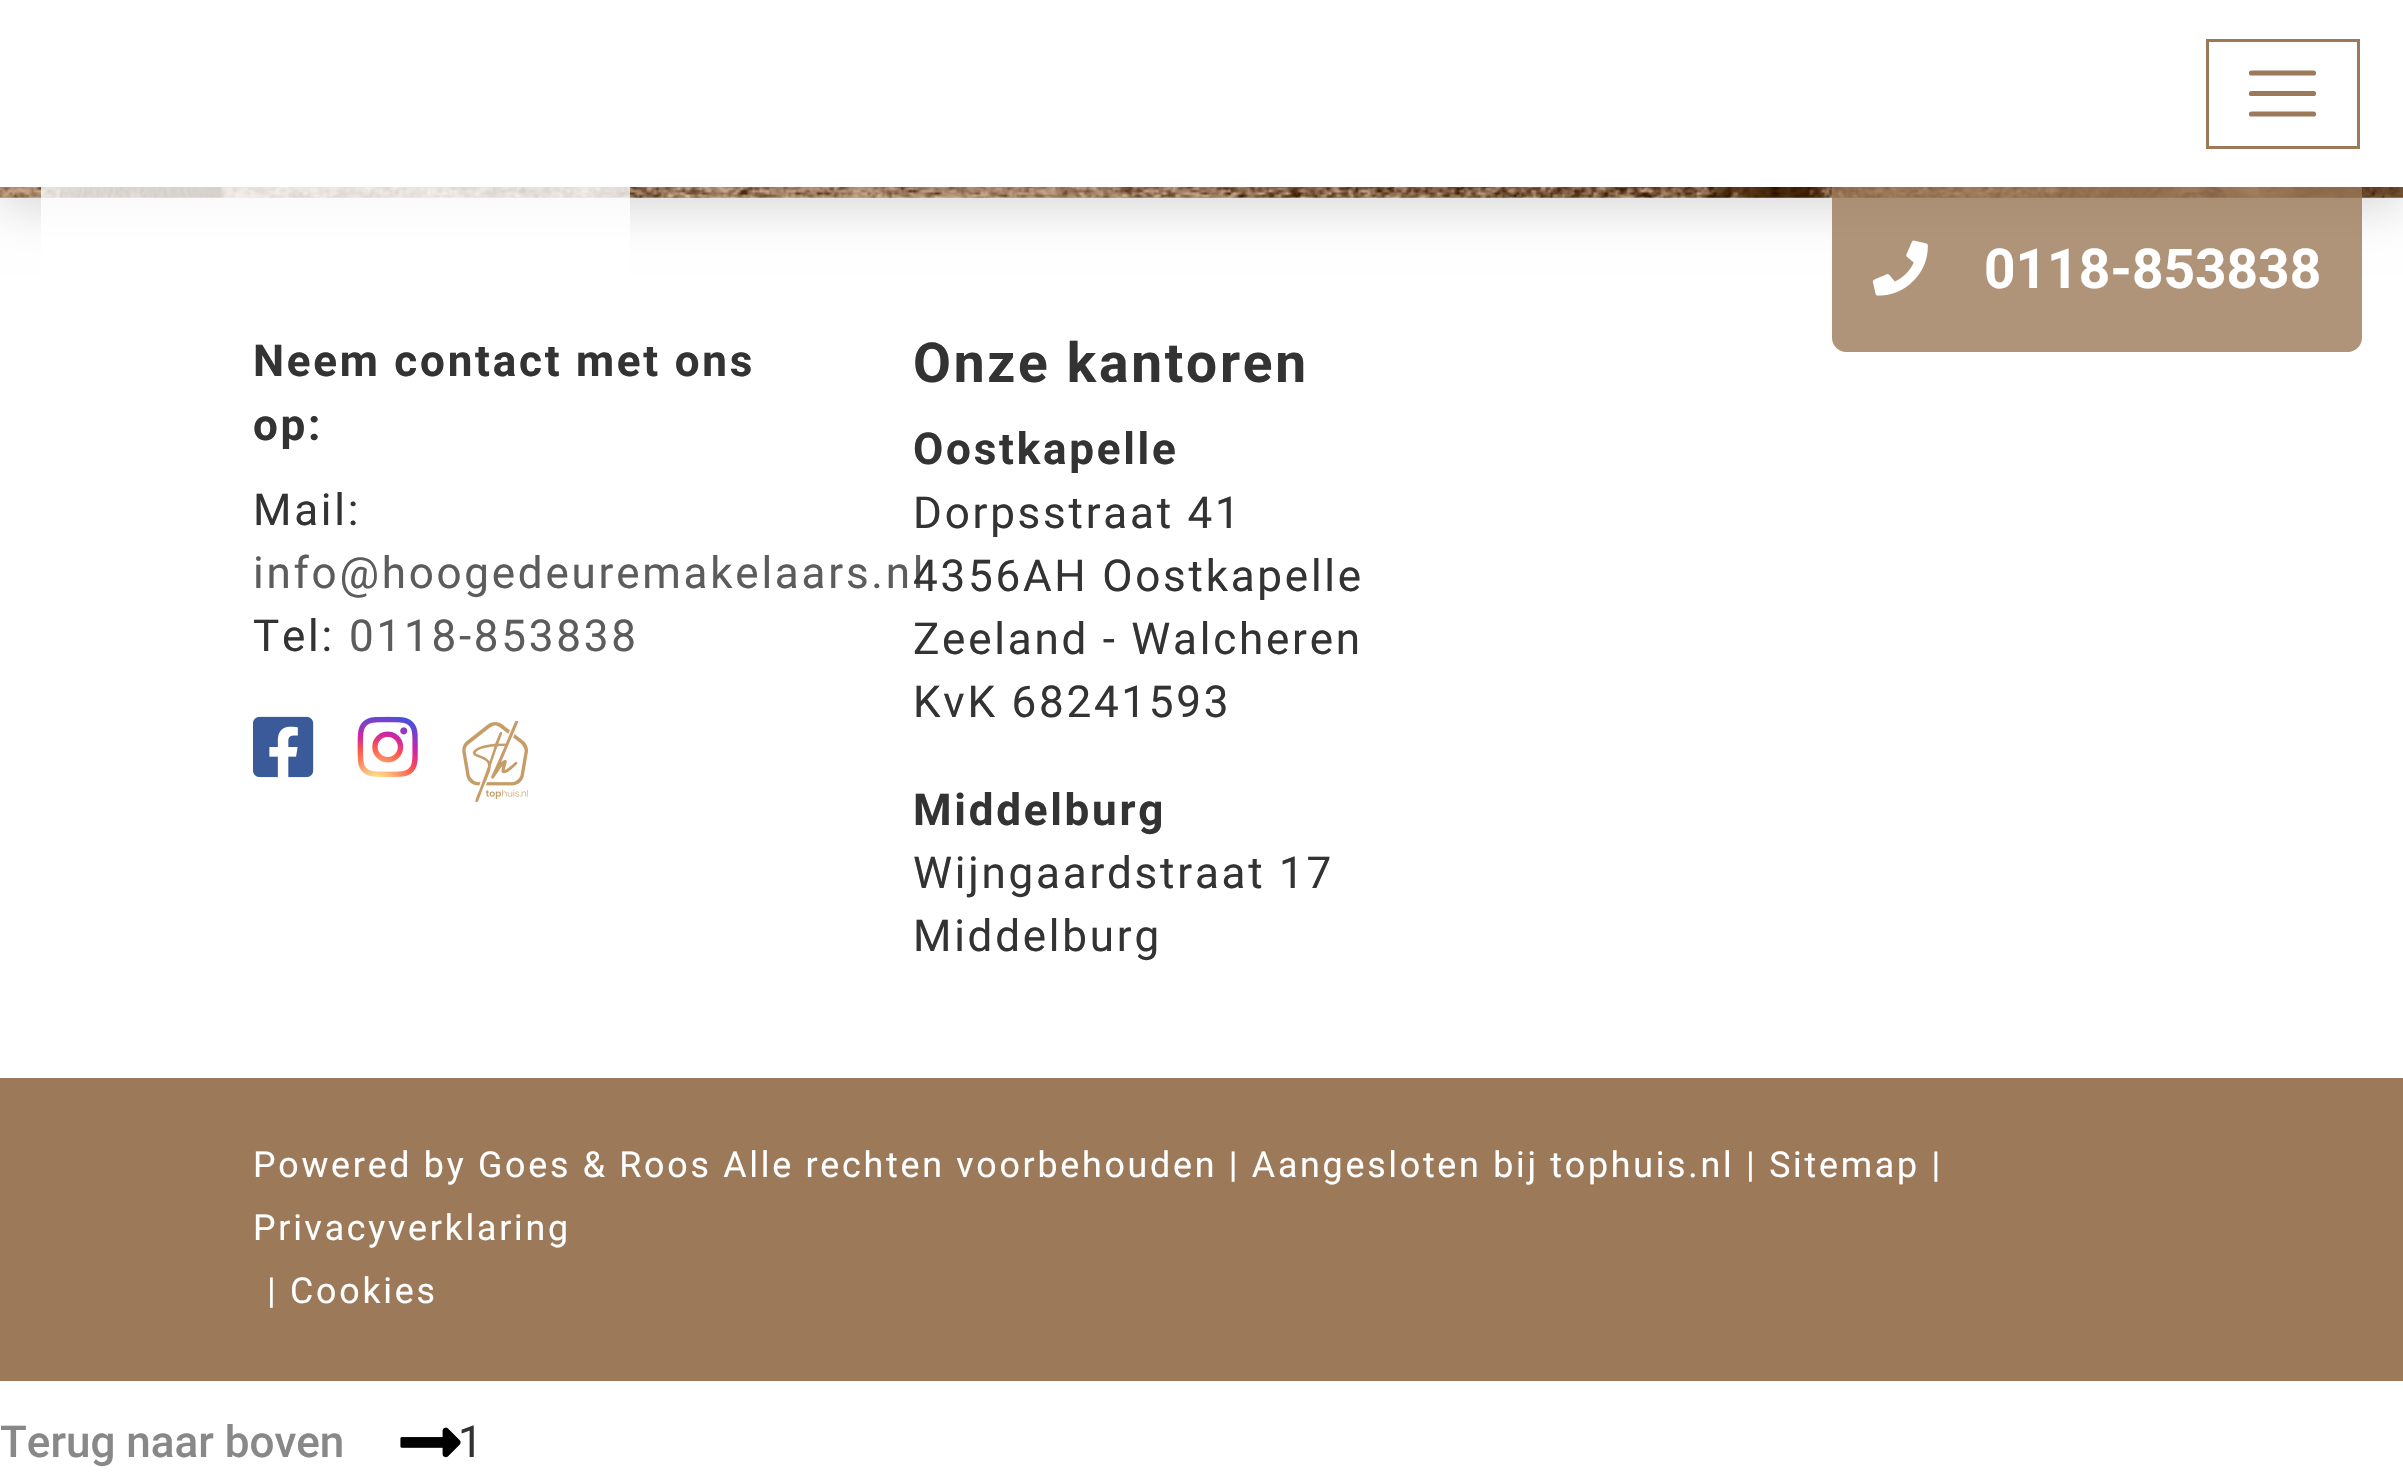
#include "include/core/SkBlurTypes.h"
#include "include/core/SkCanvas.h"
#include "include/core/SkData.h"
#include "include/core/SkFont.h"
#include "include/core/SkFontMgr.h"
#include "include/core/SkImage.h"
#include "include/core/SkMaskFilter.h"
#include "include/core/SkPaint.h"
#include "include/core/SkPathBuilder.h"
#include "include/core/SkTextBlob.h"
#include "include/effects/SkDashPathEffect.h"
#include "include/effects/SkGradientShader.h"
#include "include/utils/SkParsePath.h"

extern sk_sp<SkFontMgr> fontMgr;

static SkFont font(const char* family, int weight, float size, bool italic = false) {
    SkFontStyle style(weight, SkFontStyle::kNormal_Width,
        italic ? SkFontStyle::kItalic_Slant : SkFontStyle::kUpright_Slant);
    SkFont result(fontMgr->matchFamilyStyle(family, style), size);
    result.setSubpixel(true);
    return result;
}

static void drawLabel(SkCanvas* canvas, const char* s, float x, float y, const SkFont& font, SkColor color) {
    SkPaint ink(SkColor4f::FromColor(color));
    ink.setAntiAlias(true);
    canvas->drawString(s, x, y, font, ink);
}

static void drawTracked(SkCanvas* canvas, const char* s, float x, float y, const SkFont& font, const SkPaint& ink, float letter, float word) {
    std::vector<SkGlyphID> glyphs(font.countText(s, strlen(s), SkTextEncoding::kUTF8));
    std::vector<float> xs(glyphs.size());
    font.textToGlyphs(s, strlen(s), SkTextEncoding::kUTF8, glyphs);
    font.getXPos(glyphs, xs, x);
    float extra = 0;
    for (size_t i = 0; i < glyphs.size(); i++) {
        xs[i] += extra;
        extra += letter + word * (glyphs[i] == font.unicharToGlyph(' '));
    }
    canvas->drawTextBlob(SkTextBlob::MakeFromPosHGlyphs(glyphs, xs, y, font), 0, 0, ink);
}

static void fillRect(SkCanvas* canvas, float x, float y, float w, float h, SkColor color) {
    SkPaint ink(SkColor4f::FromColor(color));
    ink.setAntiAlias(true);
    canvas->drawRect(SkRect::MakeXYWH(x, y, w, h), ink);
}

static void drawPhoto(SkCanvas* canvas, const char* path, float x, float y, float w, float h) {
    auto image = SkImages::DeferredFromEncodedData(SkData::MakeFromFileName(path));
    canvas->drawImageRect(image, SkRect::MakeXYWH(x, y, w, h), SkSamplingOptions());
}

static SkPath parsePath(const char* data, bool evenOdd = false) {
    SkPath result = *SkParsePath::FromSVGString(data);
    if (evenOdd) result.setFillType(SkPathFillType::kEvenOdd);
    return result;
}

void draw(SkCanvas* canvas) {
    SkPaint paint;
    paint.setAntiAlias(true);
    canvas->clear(0xFFFFFFFF);
    drawPhoto(canvas, "assets/img1.png", 0, 187, 2403, 11);
    paint.setColor(0x26000000);
    paint.setMaskFilter(SkMaskFilter::MakeBlur(kNormal_SkBlurStyle, 22));
    canvas->drawRect(SkRect::MakeXYWH(0, 22, 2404, 187), paint);
    paint.setMaskFilter(nullptr);
    fillRect(canvas, 0, 0, 2403, 187, 0xFFFFFFFF);
    paint.setStroke(true);
    paint.setStrokeWidth(3);
    paint.setColor(0xFF9C7959);
    canvas->drawRect(SkRect::MakeXYWH(2207.5f, 40.5f, 151, 107), paint);
    paint.setStrokeWidth(5.2f);
    paint.setStrokeCap(SkPaint::kRound_Cap);
    canvas->drawPath(parsePath("M2251.5 73H2313.5M2251.5 93.5H2313.5M2251.5 114H2313.5"), paint);
    paint.setStroke(false);
    paint.setColor(0xCCFFFFFF);
    canvas->drawPath(parsePath("M41 184H630V294C630 301.5 623.5 308 616 308H55C47.5 308 41 301.5 41 294Z"), paint);
    paint.setColor(0xCC9C7959);
    canvas->drawPath(parsePath("M1832 187H2362V338C2362 345.5 2355.5 352 2348 352H1846C1838.5 352 1832 345.5 1832 338Z"), paint);
    drawPhoto(canvas, "assets/img2.png", 1872, 240, 56, 56);
    SkFont font1 = font("Roboto", 700, 55);
    drawLabel(canvas, "0118-853838", 1984, 288, font1, 0xFFFFFFFF);
    SkFont font2 = font("Roboto", 700, 44);
    paint.setColor(0xFF333333);
    drawTracked(canvas, "Neem contact met ons", 253, 376, font2, paint, 2.75f, 0);
    drawTracked(canvas, "op:", 253, 440, font2, paint, 2.75f, 0);
    SkFont font3 = font("Roboto", 400, 44);
    drawTracked(canvas, "Mail:", 253, 525, font3, paint, 2.75f, 0);
    paint.setColor(0xFF5C5C5C);
    drawTracked(canvas, "info@hoogedeuremakelaars.nl", 253, 588, font3, paint, 2.75f, 0);
    paint.setColor(0xFF333333);
    drawTracked(canvas, "Tel:", 253, 651, font3, paint, 2.75f, 0);
    paint.setColor(0xFF5C5C5C);
    drawTracked(canvas, "0118-853838", 349, 651, font3, paint, 2.75f, 0);
    drawPhoto(canvas, "assets/img3.png", 253, 716, 61, 62);
    drawPhoto(canvas, "assets/img4.png", 357, 716, 61, 62);
    drawPhoto(canvas, "assets/img5.png", 462, 721, 66, 82);
    paint.setColor(0xFF333333);
    drawTracked(canvas, "Onze kantoren", 913, 382, font1, paint, 2.75f, 0);
    drawTracked(canvas, "Oostkapelle", 913, 464, font2, paint, 2.75f, 0);
    drawTracked(canvas, "Dorpsstraat 41", 913, 528, font3, paint, 2.75f, 0);
    drawTracked(canvas, "4356AH Oostkapelle", 913, 591, font3, paint, 2.75f, 0);
    drawTracked(canvas, "Zeeland - Walcheren", 913, 654, font3, paint, 2.75f, 0);
    drawTracked(canvas, "KvK 68241593", 913, 717, font3, paint, 2.75f, 0);
    drawTracked(canvas, "Middelburg", 913, 825, font2, paint, 2.75f, 0);
    drawTracked(canvas, "Wijngaardstraat 17", 913, 888, font3, paint, 2.75f, 0);
    drawTracked(canvas, "Middelburg", 913, 951, font3, paint, 2.75f, 0);
    fillRect(canvas, 0, 1078, 2403, 303, 0xFF9C7959);
    SkFont font4 = font("Roboto", 400, 35.75f);
    paint.setColor(0xFFFFFFFF);
    drawTracked(canvas, "Powered by Goes & Roos Alle rechten voorbehouden | Aangesloten bij tophuis.nl | Sitemap |", 253, 1177, font4, paint, 2.75f, 0);
    drawTracked(canvas, "Privacyverklaring", 253, 1240, font4, paint, 2.75f, 0);
    drawTracked(canvas, "| Cookies", 267, 1303, font4, paint, 2.75f, 0);
    SkFont font5 = font("Roboto", 500, 44);
    drawLabel(canvas, "Terug naar boven", 0, 1457, font5, 0xFF888888);
    drawPhoto(canvas, "assets/img6.png", 400, 1427, 61, 31);
    drawLabel(canvas, "1", 458, 1457, font3, 0xFF333333);
}
